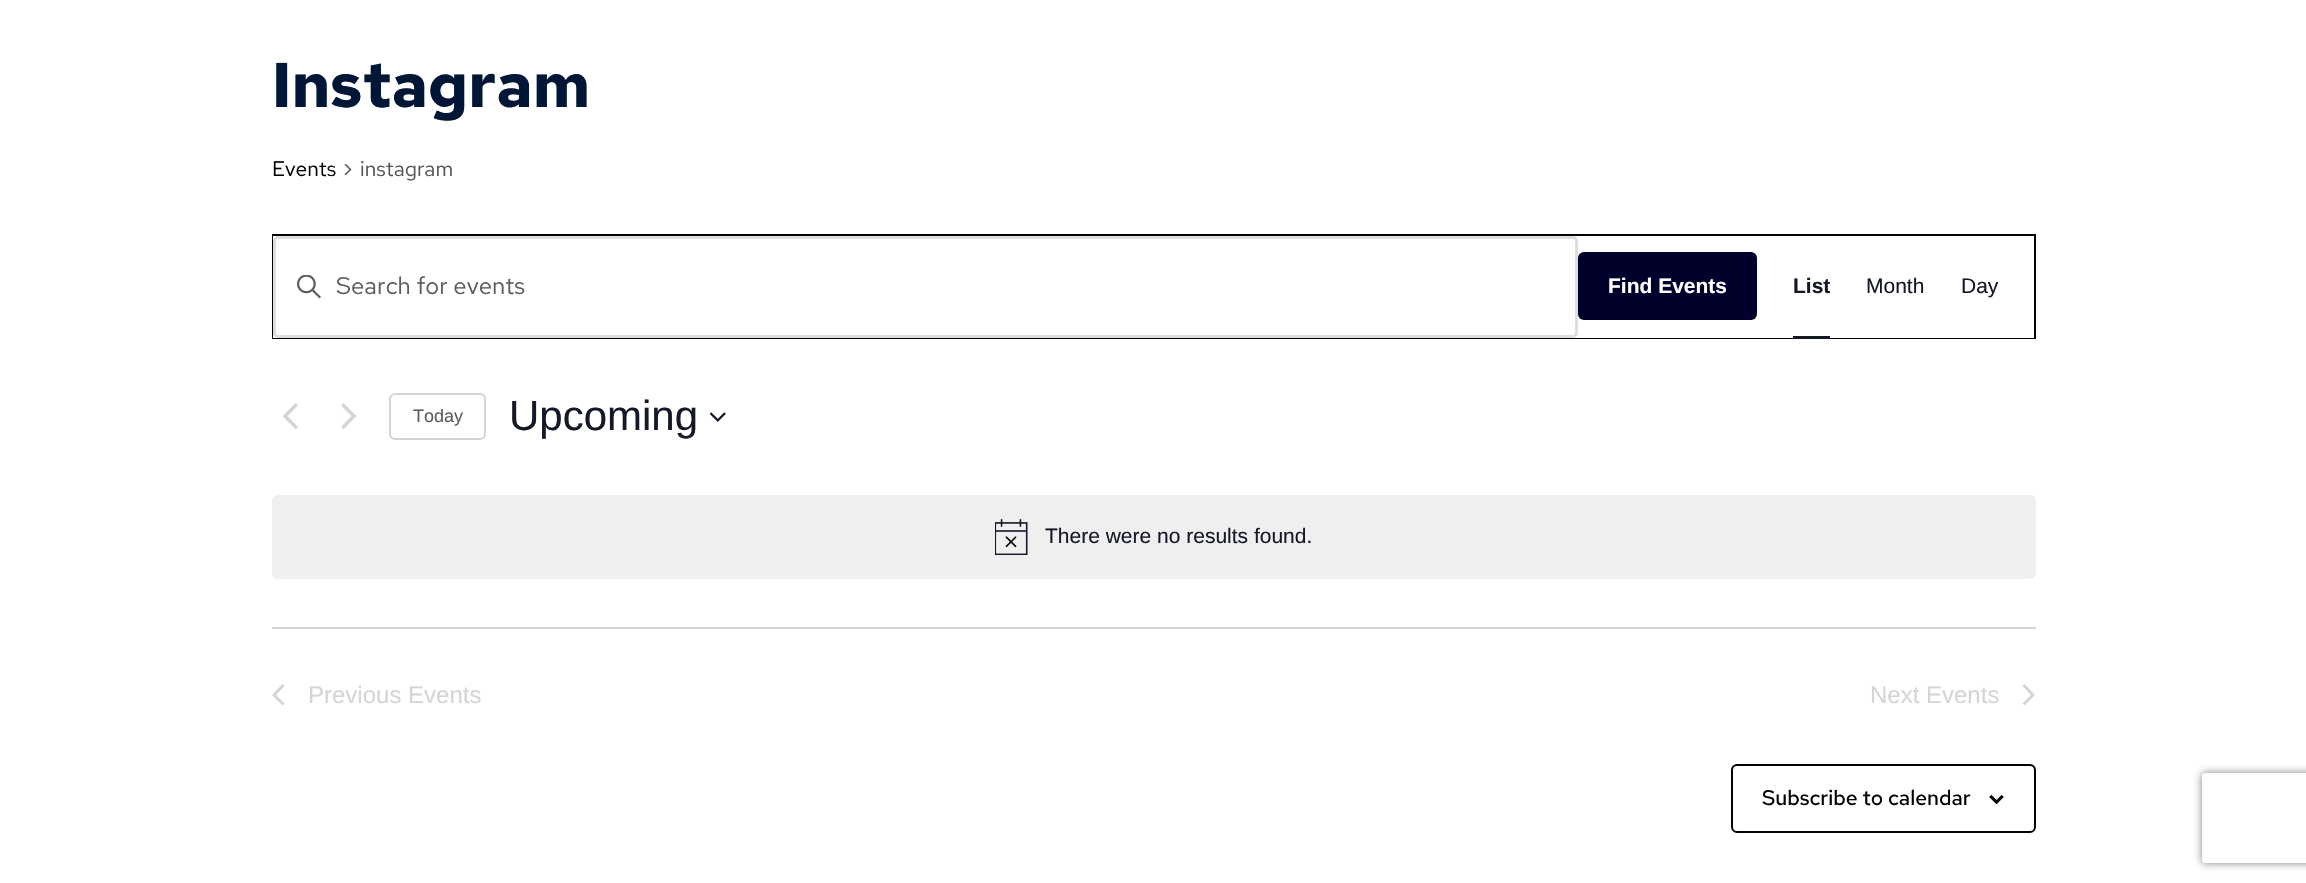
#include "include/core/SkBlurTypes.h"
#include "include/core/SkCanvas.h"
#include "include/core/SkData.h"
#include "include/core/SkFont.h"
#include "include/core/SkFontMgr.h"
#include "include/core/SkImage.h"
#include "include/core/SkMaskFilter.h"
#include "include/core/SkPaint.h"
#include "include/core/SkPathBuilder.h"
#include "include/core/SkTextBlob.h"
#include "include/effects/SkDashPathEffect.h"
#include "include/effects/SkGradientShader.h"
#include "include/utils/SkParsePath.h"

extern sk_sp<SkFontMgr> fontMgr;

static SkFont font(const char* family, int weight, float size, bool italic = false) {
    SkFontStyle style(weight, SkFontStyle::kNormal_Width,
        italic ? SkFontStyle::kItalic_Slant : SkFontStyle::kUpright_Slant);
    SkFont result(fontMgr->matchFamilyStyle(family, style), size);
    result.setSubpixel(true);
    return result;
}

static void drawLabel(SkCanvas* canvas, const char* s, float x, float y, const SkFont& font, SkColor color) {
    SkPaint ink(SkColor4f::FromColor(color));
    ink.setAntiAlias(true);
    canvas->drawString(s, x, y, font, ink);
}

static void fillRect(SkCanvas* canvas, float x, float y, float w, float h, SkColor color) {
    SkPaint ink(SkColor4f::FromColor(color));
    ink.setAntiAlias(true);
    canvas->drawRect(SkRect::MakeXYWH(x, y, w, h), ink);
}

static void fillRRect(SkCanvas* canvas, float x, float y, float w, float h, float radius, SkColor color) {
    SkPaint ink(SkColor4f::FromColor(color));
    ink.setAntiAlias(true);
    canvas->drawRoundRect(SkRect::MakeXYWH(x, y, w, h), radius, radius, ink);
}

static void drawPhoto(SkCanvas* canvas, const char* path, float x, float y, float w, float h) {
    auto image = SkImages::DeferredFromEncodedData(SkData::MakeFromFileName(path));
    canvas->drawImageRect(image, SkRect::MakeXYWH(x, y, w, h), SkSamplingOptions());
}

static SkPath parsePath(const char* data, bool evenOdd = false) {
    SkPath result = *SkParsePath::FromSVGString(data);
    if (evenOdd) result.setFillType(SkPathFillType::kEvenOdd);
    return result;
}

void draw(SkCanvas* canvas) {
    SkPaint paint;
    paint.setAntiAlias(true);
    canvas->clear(0xFFFFFFFF);
    SkFont font1 = font("Red Hat Text", 700, 63);
    drawLabel(canvas, "Instagram", 272, 107, font1, 0xFF001636);
    SkFont font2 = font("Red Hat Text", 400, 21);
    drawLabel(canvas, "Events", 272, 176, font2, 0xFF000102);
    drawPhoto(canvas, "assets/img1.png", 344, 164, 8, 12);
    drawLabel(canvas, "instagram", 360, 176, font2, 0xFF555555);
    paint.setStroke(true);
    paint.setStrokeWidth(2);
    paint.setColor(0xFF020202);
    canvas->drawRect(SkRect::MakeXYWH(273, 235, 1762, 103), paint);
    fillRect(canvas, 273, 236, 1484, 102, 0xFFFFFFFF);
    paint.setStrokeWidth(3);
    paint.setColor(0xFFDEDEDE);
    canvas->drawRoundRect(SkRect::MakeXYWH(274.5f, 237.5f, 1302, 99), 3.5f, 3.5f, paint);
    drawPhoto(canvas, "assets/img2.png", 297, 275, 24, 24);
    SkFont font3 = font("Red Hat Text", 400, 24);
    drawLabel(canvas, "Search for events", 336, 294, font3, 0xFF5D5D5D);
    fillRRect(canvas, 1578, 252, 179, 68, 6, 0xFF00002D);
    SkFont font4 = font("Liberation Sans", 700, 21);
    drawLabel(canvas, "Find Events", 1608, 293, font4, 0xFFFFFFFF);
    fillRect(canvas, 1757, 337, 277, 1, 0xFFFFFFFF);
    drawLabel(canvas, "List", 1793, 293, font4, 0xFF141827);
    fillRect(canvas, 1793, 336, 37, 3, 0xFF141827);
    SkFont font5 = font("Liberation Sans", 400, 21);
    drawLabel(canvas, "Month", 1866, 293, font5, 0xFF141827);
    drawLabel(canvas, "Day", 1961, 293, font5, 0xFF141827);
    paint.setStroke(false);
    paint.setColor(0xFFD5D5D5);
    canvas->drawPath(parsePath("M298 427L295.5 429.5L282.5 416L295.5 403L298 405.5L287.5 416Z"), paint);
    canvas->drawPath(parsePath("M341 405.5L343.5 403L356.5 416L343.5 429.5L341 427L351.5 416Z"), paint);
    paint.setStroke(true);
    paint.setStrokeWidth(2);
    canvas->drawRoundRect(SkRect::MakeXYWH(390, 394, 95, 45), 5, 5, paint);
    SkFont font6 = font("Liberation Sans", 400, 18);
    drawLabel(canvas, "Today", 413, 422, font6, 0xFF5D5D5D);
    SkFont font7 = font("Liberation Sans", 400, 42);
    drawLabel(canvas, "Upcoming", 509, 430, font7, 0xFF141827);
    drawPhoto(canvas, "assets/img3.png", 710, 412, 16, 10);
    fillRRect(canvas, 272, 495, 1764, 84, 6, 0xFFEFEFF0);
    drawPhoto(canvas, "assets/img4.png", 995, 519, 33, 36);
    drawLabel(canvas, "There were no results found.", 1045, 543, font5, 0xFF141827);
    fillRect(canvas, 272, 627, 1764, 2, 0xFFD5D5D5);
    paint.setStroke(false);
    canvas->drawPath(parsePath("M284.5 703.5L282.5 705.5L272 695L282.5 684L284.5 686L276 695Z"), paint);
    SkFont font8 = font("Liberation Sans", 400, 24);
    drawLabel(canvas, "Previous Events", 308, 703, font8, 0xFFD5D5D5);
    drawLabel(canvas, "Next Events", 1870, 703, font8, 0xFFD5D5D5);
    canvas->drawPath(parsePath("M2022.5 686L2024.5 684L2035 695L2024.5 705.5L2022.5 703.5L2031 695Z"), paint);
    paint.setStroke(true);
    paint.setColor(0xFF000102);
    canvas->drawRoundRect(SkRect::MakeXYWH(1732, 765, 303, 67), 5, 5, paint);
    SkFont font9 = font("Red Hat Text", 500, 21);
    drawLabel(canvas, "Subscribe to calendar", 1762, 805, font9, 0xFF000102);
    drawPhoto(canvas, "assets/img5.png", 1989, 795, 15, 9);
    canvas->save();
    canvas->clipPath(parsePath("M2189 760H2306V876H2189ZM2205 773H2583C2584.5 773 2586 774.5 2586 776V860C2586 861.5 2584.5 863 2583 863H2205C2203.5 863 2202 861.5 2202 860V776C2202 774.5 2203.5 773 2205 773Z", true), true);
    paint.setStroke(false);
    paint.setColor(0xFF808080);
    paint.setMaskFilter(SkMaskFilter::MakeBlur(kNormal_SkBlurStyle, 4));
    canvas->drawRoundRect(SkRect::MakeXYWH(2202, 773, 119, 90), 3, 3, paint);
    paint.setMaskFilter(nullptr);
    canvas->restore();
}
